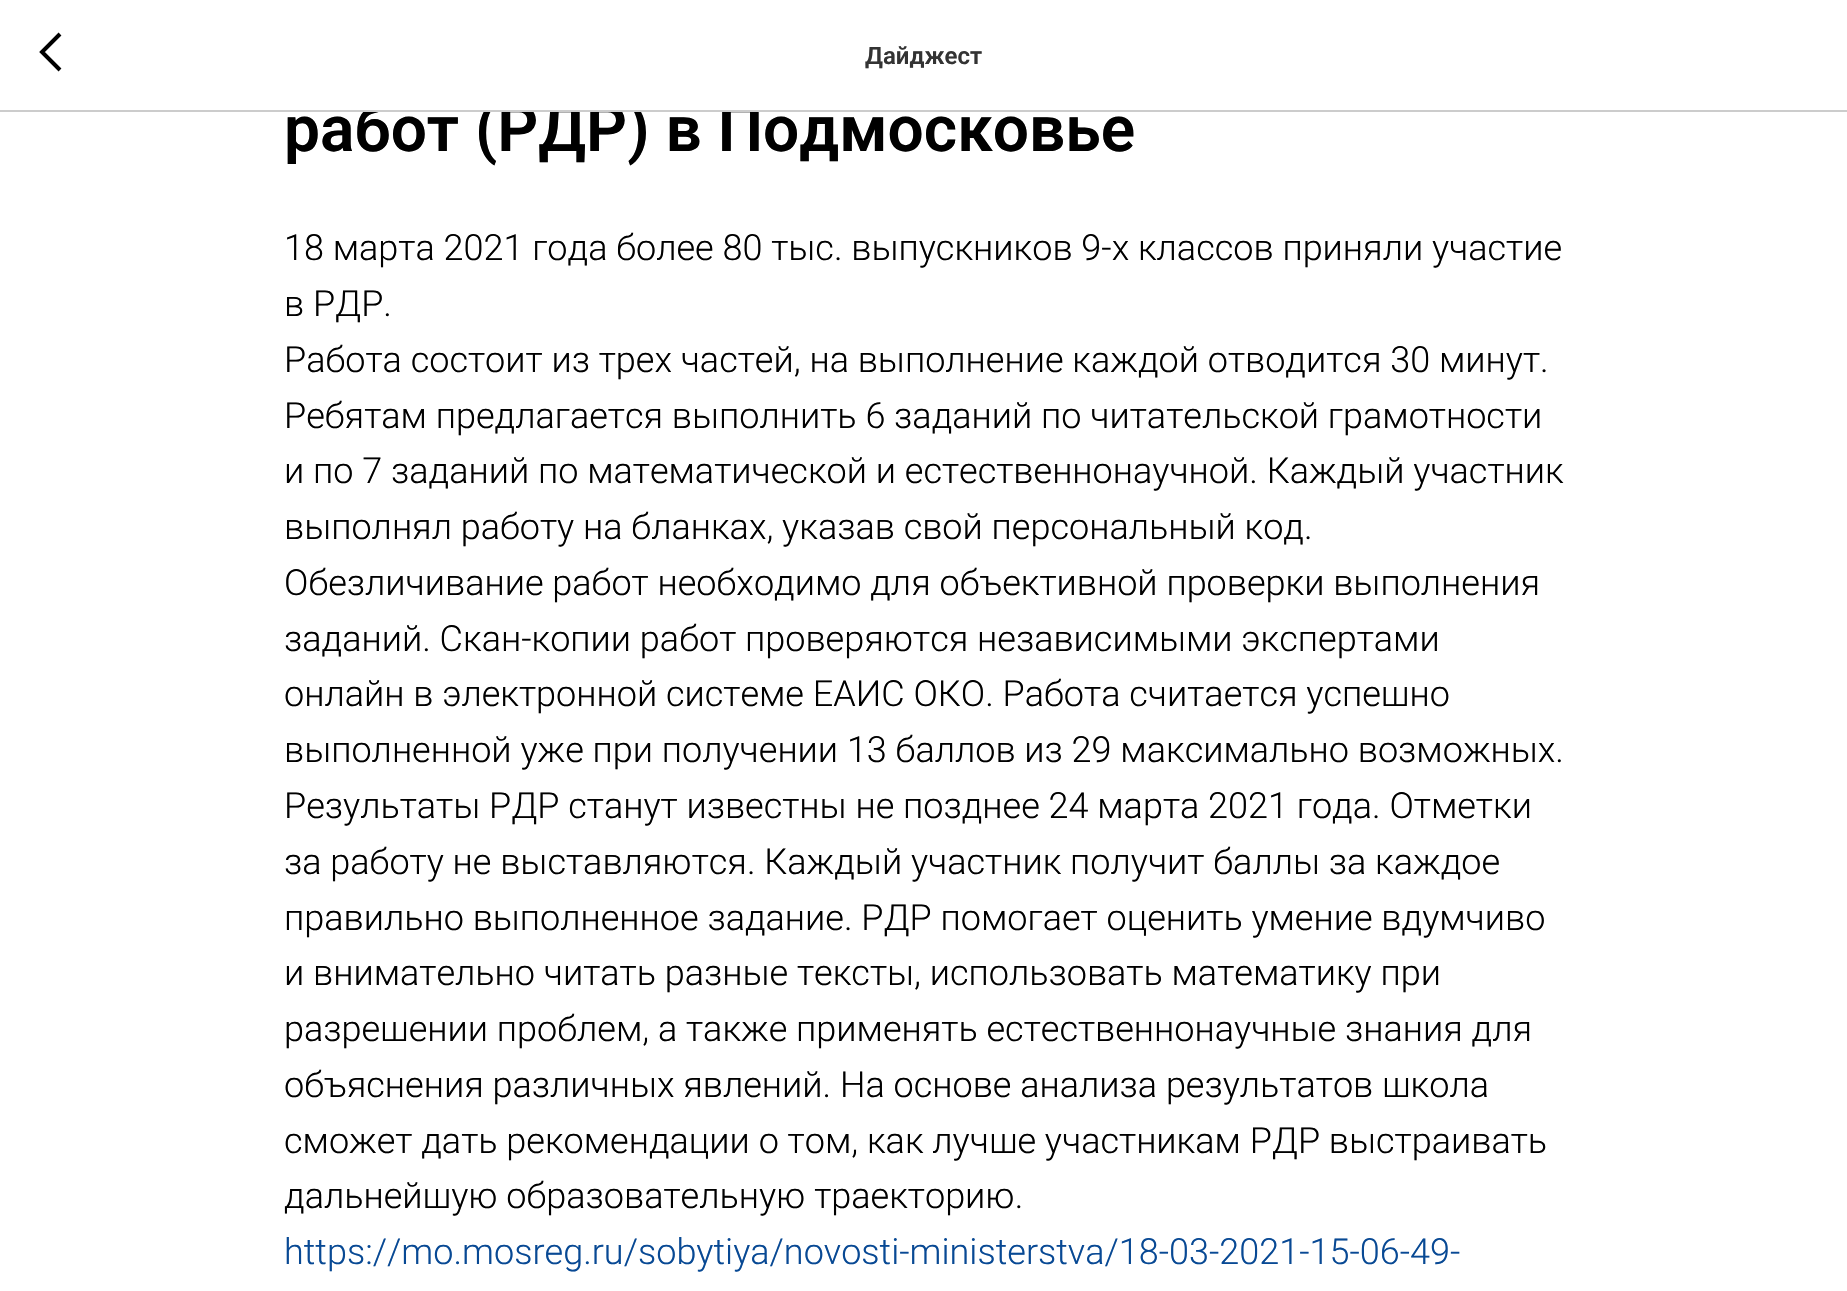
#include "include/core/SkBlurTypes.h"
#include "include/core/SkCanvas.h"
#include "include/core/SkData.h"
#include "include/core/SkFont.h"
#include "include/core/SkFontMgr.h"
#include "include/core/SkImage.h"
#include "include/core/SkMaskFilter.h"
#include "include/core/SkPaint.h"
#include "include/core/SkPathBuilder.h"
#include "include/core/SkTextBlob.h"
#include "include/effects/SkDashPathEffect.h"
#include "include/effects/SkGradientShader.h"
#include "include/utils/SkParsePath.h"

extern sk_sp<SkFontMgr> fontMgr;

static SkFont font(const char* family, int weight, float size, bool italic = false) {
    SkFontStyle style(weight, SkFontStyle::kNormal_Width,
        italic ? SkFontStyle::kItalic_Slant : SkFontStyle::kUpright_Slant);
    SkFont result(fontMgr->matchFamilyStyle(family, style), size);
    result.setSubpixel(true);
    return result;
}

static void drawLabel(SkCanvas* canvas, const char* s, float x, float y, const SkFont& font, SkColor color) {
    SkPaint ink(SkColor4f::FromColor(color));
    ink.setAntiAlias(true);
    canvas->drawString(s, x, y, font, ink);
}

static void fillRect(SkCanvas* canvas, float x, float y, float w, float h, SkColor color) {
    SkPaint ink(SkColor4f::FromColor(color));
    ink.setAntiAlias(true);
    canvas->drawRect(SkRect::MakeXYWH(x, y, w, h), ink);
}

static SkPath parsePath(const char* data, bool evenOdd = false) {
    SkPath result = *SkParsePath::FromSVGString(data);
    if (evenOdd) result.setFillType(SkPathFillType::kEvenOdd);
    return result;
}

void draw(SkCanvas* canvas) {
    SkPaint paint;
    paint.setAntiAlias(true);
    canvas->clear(0xFFFFFFFF);
    SkFont font1 = font("Roboto", 600, 64);
    drawLabel(canvas, "работ (РДР) в Подмосковье", 284, 151, font1, 0xFF000000);
    fillRect(canvas, 365, 100, 394, 10, 0xFFFFFFFF);
    fillRect(canvas, 0, 110, 1847, 2, 0xFFCCCCCC);
    paint.setStroke(true);
    paint.setStrokeWidth(4);
    paint.setColor(0xFF000000);
    canvas->drawPath(parsePath("M60 70L42 52L60 34"), paint);
    SkFont font2 = font("Roboto", 600, 24);
    drawLabel(canvas, "Дайджест", 865, 64, font2, 0xFF333333);
    SkFont font3 = font("Roboto", 300, 36);
    drawLabel(canvas, "18 марта 2021 года более 80 тыс. выпускников 9-х классов приняли участие", 284, 260, font3, 0xFF000000);
    drawLabel(canvas, "в РДР.", 284, 316, font3, 0xFF000000);
    drawLabel(canvas, "Работа состоит из трех частей, на выполнение каждой отводится 30 минут.", 284, 372, font3, 0xFF000000);
    drawLabel(canvas, "Ребятам предлагается выполнить 6 заданий по читательской грамотности", 284, 428, font3, 0xFF000000);
    drawLabel(canvas, "и по 7 заданий по математической и естественнонаучной. Каждый участник", 284, 483, font3, 0xFF000000);
    drawLabel(canvas, "выполнял работу на бланках, указав свой персональный код.", 284, 539, font3, 0xFF000000);
    drawLabel(canvas, "Обезличивание работ необходимо для объективной проверки выполнения", 284, 595, font3, 0xFF000000);
    drawLabel(canvas, "заданий. Скан-копии работ проверяются независимыми экспертами", 284, 651, font3, 0xFF000000);
    drawLabel(canvas, "онлайн в электронной системе ЕАИС ОКО. Работа считается успешно", 284, 706, font3, 0xFF000000);
    drawLabel(canvas, "выполненной уже при получении 13 баллов из 29 максимально возможных.", 284, 762, font3, 0xFF000000);
    drawLabel(canvas, "Результаты РДР станут известны не позднее 24 марта 2021 года. Отметки", 284, 818, font3, 0xFF000000);
    drawLabel(canvas, "за работу не выставляются. Каждый участник получит баллы за каждое", 284, 874, font3, 0xFF000000);
    drawLabel(canvas, "правильно выполненное задание. РДР помогает оценить умение вдумчиво", 284, 930, font3, 0xFF000000);
    drawLabel(canvas, "и внимательно читать разные тексты, использовать математику при", 284, 985, font3, 0xFF000000);
    drawLabel(canvas, "разрешении проблем, а также применять естественнонаучные знания для", 284, 1041, font3, 0xFF000000);
    drawLabel(canvas, "объяснения различных явлений. На основе анализа результатов школа", 284, 1097, font3, 0xFF000000);
    drawLabel(canvas, "сможет дать рекомендации о том, как лучше участникам РДР выстраивать", 284, 1153, font3, 0xFF000000);
    drawLabel(canvas, "дальнейшую образовательную траекторию.", 284, 1208, font3, 0xFF000000);
    drawLabel(canvas, "https://mo.mosreg.ru/sobytiya/novosti-ministerstva/18-03-2021-15-06-49-", 284, 1264, font3, 0xFF084994);
}
